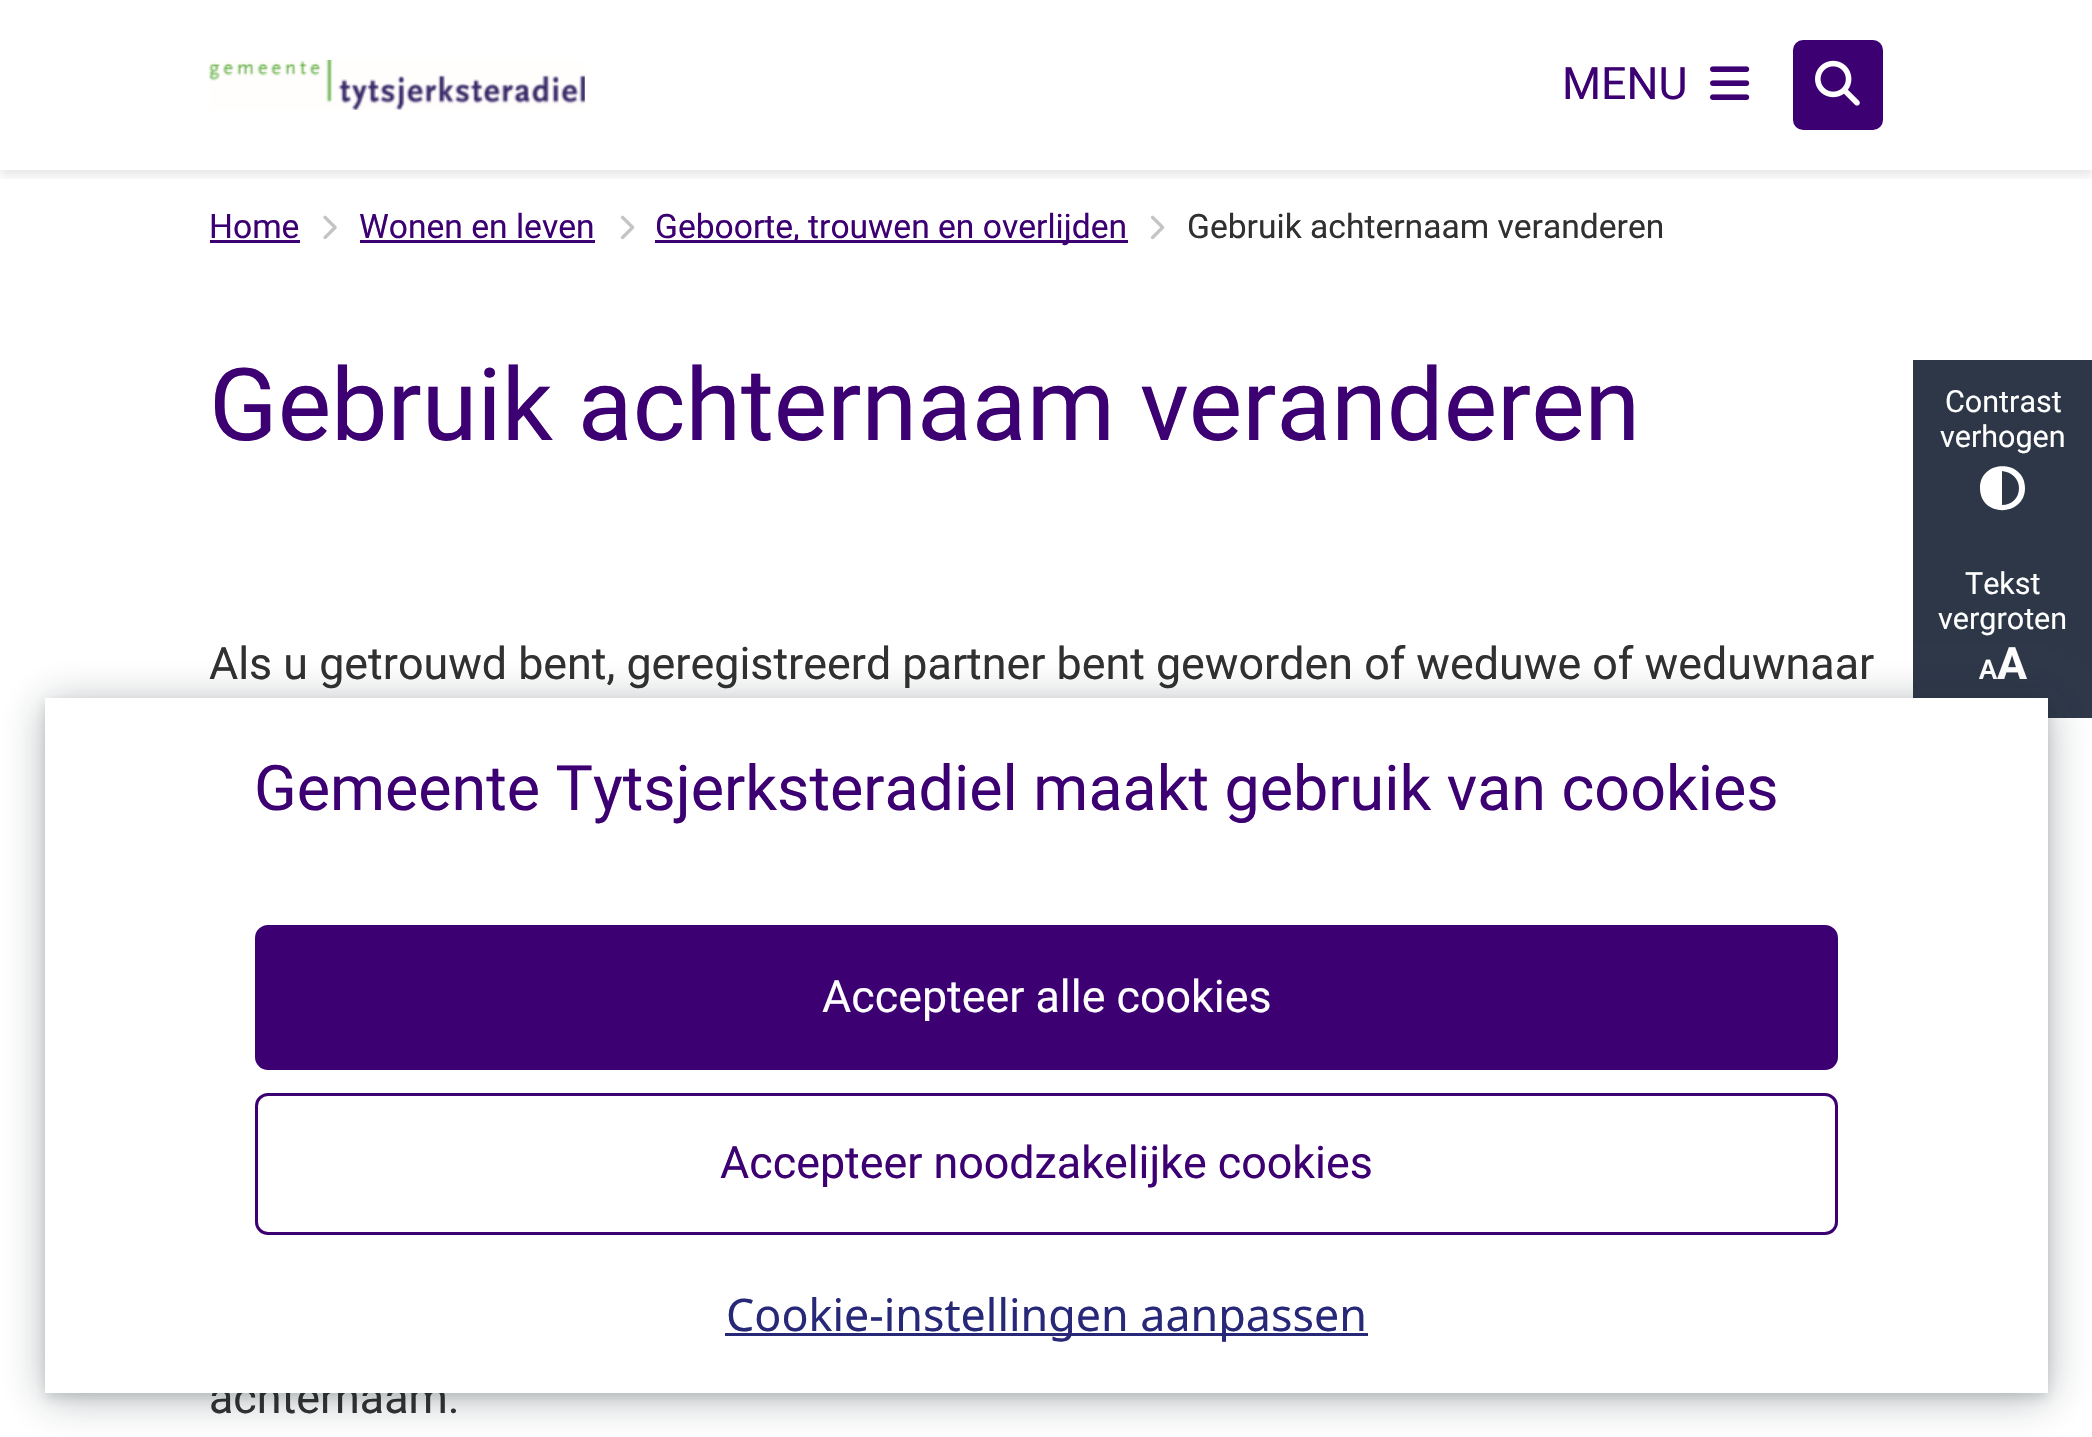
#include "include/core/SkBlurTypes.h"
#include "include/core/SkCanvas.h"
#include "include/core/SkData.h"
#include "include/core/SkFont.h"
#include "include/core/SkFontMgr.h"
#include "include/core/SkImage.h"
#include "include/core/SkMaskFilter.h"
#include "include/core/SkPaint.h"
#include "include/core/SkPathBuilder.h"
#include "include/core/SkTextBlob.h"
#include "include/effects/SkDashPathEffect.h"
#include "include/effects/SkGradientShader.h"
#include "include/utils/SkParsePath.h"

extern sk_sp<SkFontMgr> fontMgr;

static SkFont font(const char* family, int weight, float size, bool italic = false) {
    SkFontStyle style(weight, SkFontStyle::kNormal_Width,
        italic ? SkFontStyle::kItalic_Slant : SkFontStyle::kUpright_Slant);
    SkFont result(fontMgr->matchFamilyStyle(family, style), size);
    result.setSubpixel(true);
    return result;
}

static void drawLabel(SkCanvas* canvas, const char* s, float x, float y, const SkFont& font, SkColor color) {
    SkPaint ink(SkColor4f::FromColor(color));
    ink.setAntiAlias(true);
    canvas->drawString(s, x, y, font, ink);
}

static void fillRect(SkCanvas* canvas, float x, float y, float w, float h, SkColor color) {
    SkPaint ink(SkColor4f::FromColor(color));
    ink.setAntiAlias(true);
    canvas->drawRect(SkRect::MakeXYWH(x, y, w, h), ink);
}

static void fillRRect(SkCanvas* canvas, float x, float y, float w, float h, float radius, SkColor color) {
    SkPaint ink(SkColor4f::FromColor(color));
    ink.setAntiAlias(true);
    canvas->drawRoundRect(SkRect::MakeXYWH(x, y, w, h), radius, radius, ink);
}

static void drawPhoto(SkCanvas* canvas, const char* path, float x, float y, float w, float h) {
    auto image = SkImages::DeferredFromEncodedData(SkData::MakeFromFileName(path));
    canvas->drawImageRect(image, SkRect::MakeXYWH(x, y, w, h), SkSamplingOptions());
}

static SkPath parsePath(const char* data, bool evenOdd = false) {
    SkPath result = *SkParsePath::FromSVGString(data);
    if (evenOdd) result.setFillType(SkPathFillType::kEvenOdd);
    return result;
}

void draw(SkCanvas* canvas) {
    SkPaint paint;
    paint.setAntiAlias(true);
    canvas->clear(0xFFFFFFFF);
    canvas->save();
    canvas->clipRect(SkRect::MakeXYWH(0, 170, 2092, 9));
    paint.setColor(0x1A000000);
    paint.setMaskFilter(SkMaskFilter::MakeBlur(kNormal_SkBlurStyle, 5));
    canvas->drawRect(SkRect::MakeXYWH(0, 5, 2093, 170), paint);
    paint.setMaskFilter(nullptr);
    canvas->restore();
    drawPhoto(canvas, "assets/img1.png", 208, 60, 377, 50);
    SkFont font1 = font("Roboto", 400, 44.8f);
    drawLabel(canvas, "MENU", 1562, 99, font1, 0xFF3D0073);
    drawPhoto(canvas, "assets/img2.png", 1710, 66, 40, 34);
    fillRRect(canvas, 1793, 40, 90, 90, 10, 0xFF3D0073);
    drawPhoto(canvas, "assets/img3.png", 1815, 60, 45, 46);
    SkFont font2 = font("Roboto", 400, 33.6f);
    drawLabel(canvas, "Home", 209, 238, font2, 0xFF3D0073);
    fillRect(canvas, 210, 240, 90, 3, 0xFF3D0073);
    drawPhoto(canvas, "assets/img4.png", 323, 215, 14, 25);
    drawLabel(canvas, "Wonen en leven", 359, 238, font2, 0xFF3D0073);
    fillRect(canvas, 360, 240, 235, 3, 0xFF3D0073);
    drawPhoto(canvas, "assets/img5.png", 620, 215, 15, 25);
    fillRect(canvas, 655, 240, 473, 3, 0xFF3D0073);
    drawLabel(canvas, "Geboorte, trouwen en overlijden", 655, 238, font2, 0xFF3D0073);
    drawPhoto(canvas, "assets/img5.png", 1150, 215, 15, 25);
    drawLabel(canvas, "Gebruik achternaam veranderen", 1187, 238, font2, 0xFF303030);
    SkFont font3 = font("Roboto", 400, 100.75f);
    drawLabel(canvas, "Gebruik achternaam veranderen", 209, 440, font3, 0xFF3D0073);
    drawLabel(canvas, "Als u getrouwd bent, geregistreerd partner bent geworden of weduwe of weduwnaar", 209, 679, font1, 0xFF303030);
    drawLabel(canvas, "achternaam.", 209, 1413, font1, 0xFF303030);
    fillRect(canvas, 1913, 360, 179, 358, 0xFF2D3748);
    SkFont font4 = font("Roboto", 400, 30.5f);
    drawLabel(canvas, "Contrast", 1945, 412, font4, 0xFFFFFFFF);
    drawLabel(canvas, "verhogen", 1940, 447, font4, 0xFFFFFFFF);
    paint.setColor(0xFFFFFFFF);
    canvas->drawPath(parsePath("M2019 488C2019 479 2012 472 2002 471V505C2012 505 2019 498 2019 488ZM1980 488C1980 459 2025 459 2025 488C2025 517 1980 518 1980 488Z"), paint);
    drawLabel(canvas, "Tekst", 1965, 594, font4, 0xFFFFFFFF);
    drawLabel(canvas, "vergroten", 1938, 629, font4, 0xFFFFFFFF);
    SkFont font5 = font("Noto Sans", 600, 27);
    drawLabel(canvas, "A", 1979, 679, font5, 0xFFFFFFFF);
    SkFont font6 = font("Roboto", 700, 44.8f);
    drawLabel(canvas, "A", 1997, 679, font6, 0xFFFFFFFF);
    paint.setColor(0x520E1E25);
    paint.setMaskFilter(SkMaskFilter::MakeBlur(kNormal_SkBlurStyle, 20));
    canvas->drawRect(SkRect::MakeXYWH(45, 703, 2003, 695), paint);
    paint.setMaskFilter(nullptr);
    paint.setColor(0x1F0E1E25);
    paint.setMaskFilter(SkMaskFilter::MakeBlur(kNormal_SkBlurStyle, 5));
    canvas->drawRect(SkRect::MakeXYWH(45, 703, 2003, 695), paint);
    paint.setMaskFilter(nullptr);
    fillRect(canvas, 45, 698, 2003, 695, 0xFFFFFFFF);
    SkFont font7 = font("Roboto", 400, 62.75f);
    drawLabel(canvas, "Gemeente Tytsjerksteradiel maakt gebruik van cookies", 254, 810, font7, 0xFF3D0073);
    paint.setColor(0xFF3D0073);
    canvas->drawRoundRect(SkRect::MakeXYWH(256.5f, 926.5f, 1580, 142), 11.5f, 11.5f, paint);
    paint.setStroke(true);
    paint.setStrokeWidth(3);
    canvas->drawRoundRect(SkRect::MakeXYWH(256.5f, 926.5f, 1580, 142), 11.5f, 11.5f, paint);
    drawLabel(canvas, "Accepteer alle cookies", 822, 1012, font1, 0xFFFFFFFF);
    canvas->drawRoundRect(SkRect::MakeXYWH(256.5f, 1094.5f, 1580, 139), 11.5f, 11.5f, paint);
    drawLabel(canvas, "Accepteer noodzakelijke cookies", 720, 1178, font1, 0xFF3D0073);
    fillRect(canvas, 725, 1333, 643, 3, 0xFF282879);
    SkFont font8 = font("Noto Sans", 400, 44.8f);
    drawLabel(canvas, "Cookie-instellingen aanpassen", 726, 1331, font8, 0xFF282879);
}
